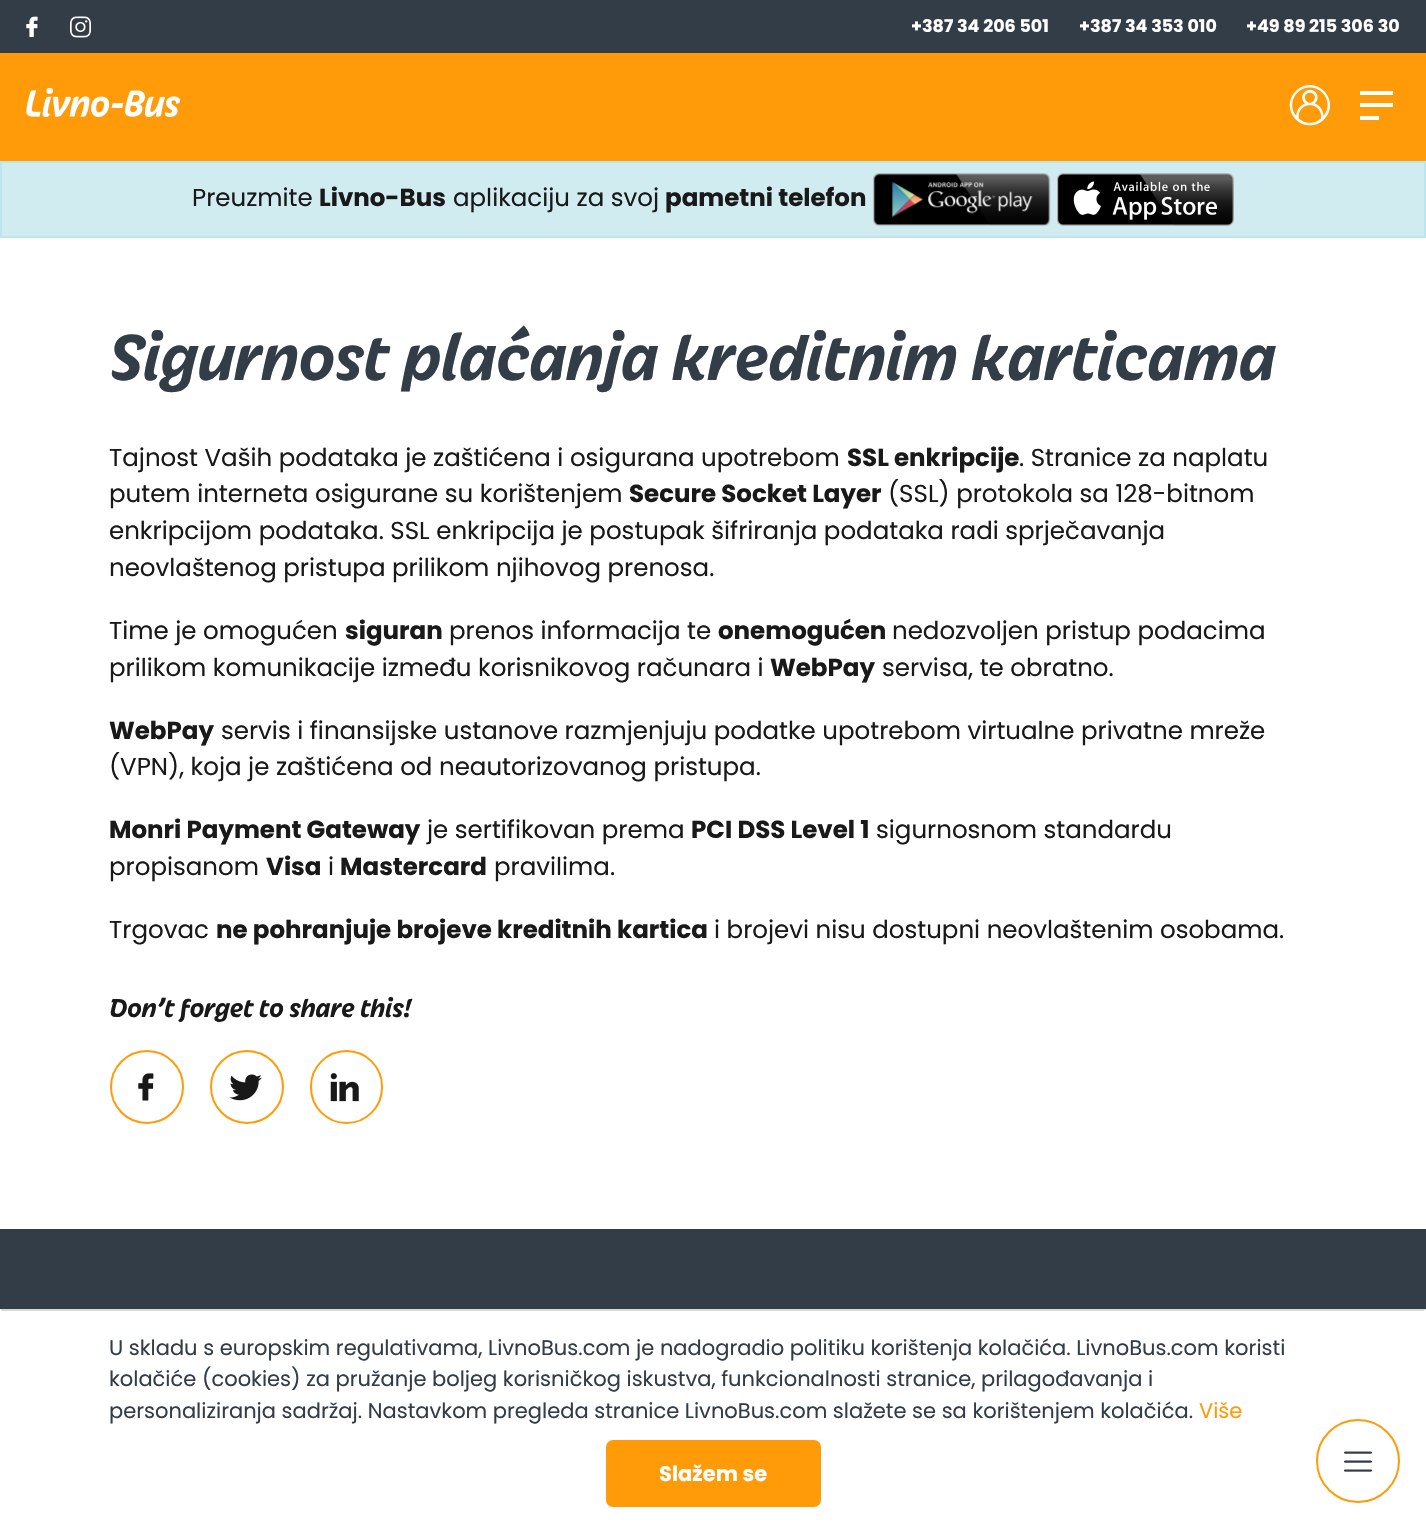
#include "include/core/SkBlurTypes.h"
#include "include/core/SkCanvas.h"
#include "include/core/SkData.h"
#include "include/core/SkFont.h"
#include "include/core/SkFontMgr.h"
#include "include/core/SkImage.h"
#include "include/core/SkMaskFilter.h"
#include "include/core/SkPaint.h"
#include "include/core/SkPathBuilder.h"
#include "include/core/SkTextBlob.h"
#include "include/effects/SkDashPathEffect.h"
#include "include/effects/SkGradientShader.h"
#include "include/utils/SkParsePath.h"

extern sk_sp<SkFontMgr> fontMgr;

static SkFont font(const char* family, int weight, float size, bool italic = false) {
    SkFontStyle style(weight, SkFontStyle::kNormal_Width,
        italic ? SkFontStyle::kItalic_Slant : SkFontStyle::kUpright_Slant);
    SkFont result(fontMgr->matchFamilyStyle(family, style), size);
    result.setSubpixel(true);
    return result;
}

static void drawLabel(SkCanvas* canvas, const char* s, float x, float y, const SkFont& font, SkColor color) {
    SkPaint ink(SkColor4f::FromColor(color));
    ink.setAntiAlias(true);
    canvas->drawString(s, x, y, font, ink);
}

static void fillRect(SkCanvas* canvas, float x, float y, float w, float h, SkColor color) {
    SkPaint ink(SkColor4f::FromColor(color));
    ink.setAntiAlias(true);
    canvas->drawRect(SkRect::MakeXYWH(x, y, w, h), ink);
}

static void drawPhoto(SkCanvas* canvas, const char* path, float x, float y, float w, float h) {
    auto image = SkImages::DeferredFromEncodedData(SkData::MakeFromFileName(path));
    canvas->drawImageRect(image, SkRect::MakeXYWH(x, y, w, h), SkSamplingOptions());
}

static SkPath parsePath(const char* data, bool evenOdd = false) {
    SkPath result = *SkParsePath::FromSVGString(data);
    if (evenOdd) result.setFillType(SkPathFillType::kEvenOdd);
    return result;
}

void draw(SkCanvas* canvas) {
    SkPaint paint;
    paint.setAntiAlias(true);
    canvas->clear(0xFFFFFFFF);
    fillRect(canvas, 0, 0, 1426, 53, 0xFF333D47);
    drawPhoto(canvas, "assets/img1.png", 26, 16, 12, 21);
    drawPhoto(canvas, "assets/img2.png", 70, 16, 21, 22);
    SkFont font1 = font("Poppins", 700, 17.5f);
    drawLabel(canvas, "+387 34 206 501", 911, 32, font1, 0xFFFFFFFF);
    drawLabel(canvas, "+387 34 353 010", 1079, 32, font1, 0xFFFFFFFF);
    drawLabel(canvas, "+49 89 215 306 30", 1246, 32, font1, 0xFFFFFFFF);
    fillRect(canvas, 0, 53, 1426, 108, 0xFFFF9B08);
    drawPhoto(canvas, "assets/img3.png", 26, 88, 154, 29);
    drawPhoto(canvas, "assets/img4.png", 1289, 85, 41, 41);
    fillRect(canvas, 1360, 91, 33, 4, 0xFFFFFFFF);
    fillRect(canvas, 1360, 103, 33, 4, 0xFFFFFFFF);
    fillRect(canvas, 1360, 116, 19, 4, 0xFFFFFFFF);
    paint.setColor(0xFFD1ECF1);
    canvas->drawRect(SkRect::MakeXYWH(1, 162, 1424, 75), paint);
    paint.setStroke(true);
    paint.setStrokeWidth(2);
    paint.setColor(0xFFBEE5EB);
    canvas->drawRect(SkRect::MakeXYWH(1, 162, 1424, 75), paint);
    SkFont font2 = font("Poppins", 400, 24.5f);
    drawLabel(canvas, "Preuzmite", 192, 206, font2, 0xFF1A1919);
    SkFont font3 = font("Poppins", 700, 24.5f);
    drawLabel(canvas, "Livno-Bus", 319, 206, font3, 0xFF1A1919);
    drawLabel(canvas, "aplikaciju za svoj", 453, 206, font2, 0xFF1A1919);
    drawLabel(canvas, "pametni telefon", 665, 206, font3, 0xFF1A1919);
    drawPhoto(canvas, "assets/img5.png", 873, 173, 178, 53);
    drawPhoto(canvas, "assets/img6.png", 1057, 173, 177, 53);
    SkFont font4 = font("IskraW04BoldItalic", 700, 70, true);
    drawLabel(canvas, "Sigurnost plaćanja kreditnim karticama", 109, 380, font4, 0xFF333D47);
    drawLabel(canvas, "Tajnost Vaših podataka je zaštićena i osigurana upotrebom", 109, 466, font2, 0xFF1A1919);
    drawLabel(canvas, "SSL enkripcije", 847, 466, font3, 0xFF1A1919);
    drawLabel(canvas, ". Stranice za naplatu", 1019, 466, font2, 0xFF1A1919);
    drawLabel(canvas, "putem interneta osigurane su korištenjem", 109, 502, font2, 0xFF1A1919);
    drawLabel(canvas, "Secure Socket Layer", 629, 502, font3, 0xFF1A1919);
    drawLabel(canvas, "(SSL) protokola sa 128-bitnom", 888, 502, font2, 0xFF1A1919);
    drawLabel(canvas, "enkripcijom podataka. SSL enkripcija je postupak šifriranja podataka radi sprječavanja", 109, 539, font2, 0xFF1A1919);
    drawLabel(canvas, "neovlaštenog pristupa prilikom njihovog prenosa.", 109, 576, font2, 0xFF1A1919);
    drawLabel(canvas, "Time je omogućen", 109, 639, font2, 0xFF1A1919);
    drawLabel(canvas, "siguran", 345, 639, font3, 0xFF1A1919);
    drawLabel(canvas, "prenos informacija te", 449, 639, font2, 0xFF1A1919);
    drawLabel(canvas, "onemogućen", 718, 639, font3, 0xFF1A1919);
    drawLabel(canvas, "nedozvoljen pristup podacima", 892, 639, font2, 0xFF1A1919);
    drawLabel(canvas, "prilikom komunikacije između korisnikovog računara i", 109, 676, font2, 0xFF1A1919);
    drawLabel(canvas, "WebPay", 770, 676, font3, 0xFF1A1919);
    drawLabel(canvas, "servisa, te obratno.", 882, 676, font2, 0xFF1A1919);
    drawLabel(canvas, "WebPay", 109, 739, font3, 0xFF1A1919);
    drawLabel(canvas, "servis i finansijske ustanove razmjenjuju podatke upotrebom virtualne privatne mreže", 221, 739, font2, 0xFF1A1919);
    drawLabel(canvas, "(VPN), koja je zaštićena od neautorizovanog pristupa.", 109, 775, font2, 0xFF1A1919);
    drawLabel(canvas, "Monri Payment Gateway", 109, 838, font3, 0xFF1A1919);
    drawLabel(canvas, "je sertifikovan prema", 427, 838, font2, 0xFF1A1919);
    drawLabel(canvas, "PCI DSS Level 1", 691, 838, font3, 0xFF1A1919);
    drawLabel(canvas, "sigurnosnom standardu", 876, 838, font2, 0xFF1A1919);
    drawLabel(canvas, "propisanom", 109, 875, font2, 0xFF1A1919);
    drawLabel(canvas, "Visa", 266, 875, font3, 0xFF1A1919);
    drawLabel(canvas, "i", 328, 875, font2, 0xFF1A1919);
    drawLabel(canvas, "Mastercard", 340, 875, font3, 0xFF1A1919);
    drawLabel(canvas, "pravilima.", 494, 875, font2, 0xFF1A1919);
    drawLabel(canvas, "Trgovac", 109, 938, font2, 0xFF1A1919);
    drawLabel(canvas, "ne pohranjuje brojeve kreditnih kartica", 216, 938, font3, 0xFF1A1919);
    drawLabel(canvas, "i brojevi nisu dostupni neovlaštenim osobama.", 714, 938, font2, 0xFF1A1919);
    SkFont font5 = font("IskraW04BoldItalic", 700, 28, true);
    drawLabel(canvas, "Don’t forget to share this!", 109, 1017, font5, 0xFF1A1919);
    paint.setColor(0xFFFF9B08);
    canvas->drawCircle(147, 1087, 36, paint);
    drawPhoto(canvas, "assets/img7.png", 138, 1073, 16, 28);
    canvas->drawCircle(247, 1087, 36, paint);
    drawPhoto(canvas, "assets/img8.png", 229, 1074, 33, 27);
    canvas->drawRoundRect(SkRect::MakeXYWH(311, 1051, 71, 72), 35.5f, 35.5f, paint);
    drawPhoto(canvas, "assets/img9.png", 330, 1073, 29, 29);
    fillRect(canvas, 0, 1229, 1426, 80, 0xFF333D47);
    paint.setStroke(false);
    paint.setColor(0xFFD9D9D9);
    canvas->drawPath(parsePath("M0 1309H1426L1424 1311H2Z"), paint);
    SkFont font6 = font("Poppins", 400, 21);
    drawLabel(canvas, "U skladu s europskim regulativama, LivnoBus.com je nadogradio politiku korištenja kolačića. LivnoBus.com koristi", 109, 1355, font6, 0xFF333D47);
    drawLabel(canvas, "kolačiće (cookies) za pružanje boljeg korisničkog iskustva, funkcionalnosti stranice, prilagođavanja i", 109, 1386, font6, 0xFF333D47);
    drawLabel(canvas, "personaliziranja sadržaj. Nastavkom pregleda stranice LivnoBus.com slažete se sa korištenjem kolačića.", 109, 1418, font6, 0xFF333D47);
    drawLabel(canvas, "Više", 1199, 1418, font6, 0xFFFF9B08);
    paint.setColor(0xFFFF9B08);
    canvas->drawRoundRect(SkRect::MakeXYWH(607, 1441, 213, 65), 6, 6, paint);
    paint.setStroke(true);
    canvas->drawRoundRect(SkRect::MakeXYWH(607, 1441, 213, 65), 6, 6, paint);
    SkFont font7 = font("Poppins", 700, 21);
    drawLabel(canvas, "Slažem se", 659, 1481, font7, 0xFFFFFFFF);
    canvas->drawCircle(1358, 1461, 41, paint);
    drawPhoto(canvas, "assets/img10.png", 1344, 1451, 28, 21);
}
